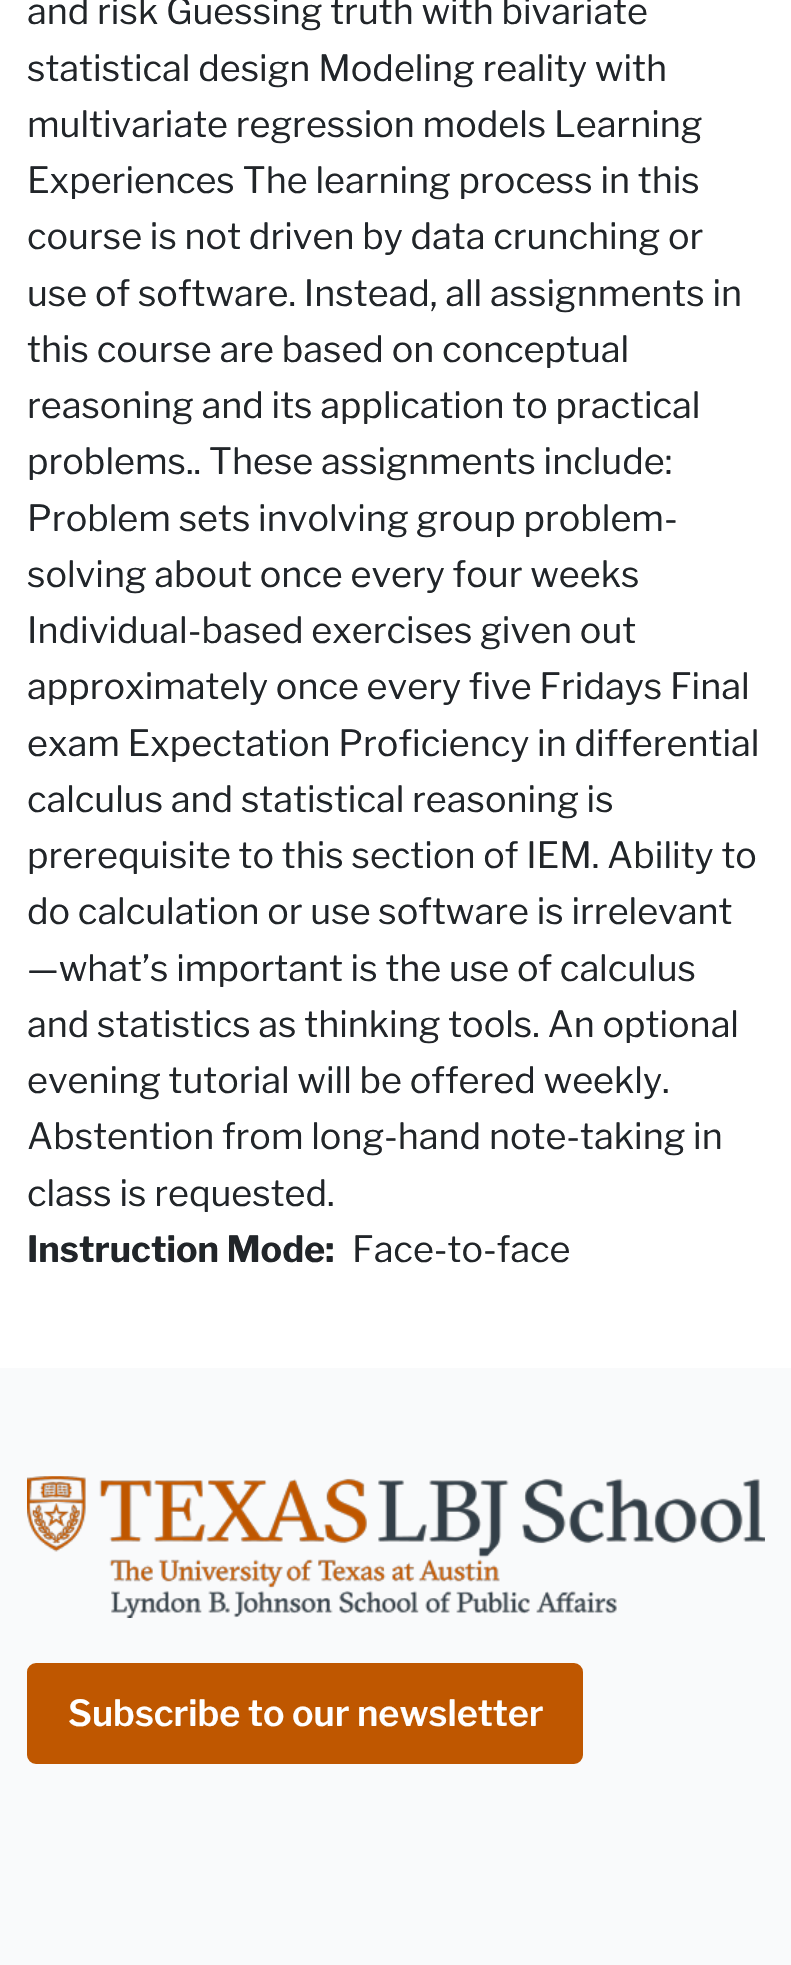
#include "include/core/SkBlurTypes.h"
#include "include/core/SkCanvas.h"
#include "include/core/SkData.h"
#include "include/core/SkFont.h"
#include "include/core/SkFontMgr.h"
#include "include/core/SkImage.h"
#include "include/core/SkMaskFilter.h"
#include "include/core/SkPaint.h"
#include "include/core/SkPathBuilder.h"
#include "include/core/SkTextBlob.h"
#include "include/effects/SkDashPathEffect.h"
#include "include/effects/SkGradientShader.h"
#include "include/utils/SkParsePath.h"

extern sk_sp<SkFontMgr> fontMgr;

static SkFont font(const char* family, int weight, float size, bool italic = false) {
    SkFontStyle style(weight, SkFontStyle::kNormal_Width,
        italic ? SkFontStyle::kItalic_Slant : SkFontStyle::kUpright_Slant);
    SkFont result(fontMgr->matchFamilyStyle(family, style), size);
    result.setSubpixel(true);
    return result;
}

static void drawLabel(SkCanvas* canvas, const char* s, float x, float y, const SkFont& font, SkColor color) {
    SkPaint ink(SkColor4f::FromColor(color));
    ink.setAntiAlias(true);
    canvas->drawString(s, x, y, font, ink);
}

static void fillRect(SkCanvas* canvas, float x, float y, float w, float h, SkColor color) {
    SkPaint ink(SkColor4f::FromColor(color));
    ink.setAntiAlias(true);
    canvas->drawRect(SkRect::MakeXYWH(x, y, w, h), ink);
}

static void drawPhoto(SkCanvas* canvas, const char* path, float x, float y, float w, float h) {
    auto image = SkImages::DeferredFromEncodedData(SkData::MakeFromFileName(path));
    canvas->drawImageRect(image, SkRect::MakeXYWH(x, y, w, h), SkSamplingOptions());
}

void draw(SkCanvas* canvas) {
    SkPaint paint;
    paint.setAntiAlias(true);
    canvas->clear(0xFFFFFFFF);
    SkFont font1 = font("Libre Franklin", 400, 36);
    drawLabel(canvas, "and risk Guessing truth with bivariate", 27, 24, font1, 0xFF212529);
    drawLabel(canvas, "statistical design Modeling reality with", 27, 81, font1, 0xFF212529);
    drawLabel(canvas, "multivariate regression models Learning", 27, 137, font1, 0xFF212529);
    drawLabel(canvas, "Experiences The learning process in this", 27, 193, font1, 0xFF212529);
    drawLabel(canvas, "course is not driven by data crunching or", 27, 249, font1, 0xFF212529);
    drawLabel(canvas, "use of software. Instead, all assignments in", 27, 306, font1, 0xFF212529);
    drawLabel(canvas, "this course are based on conceptual", 27, 362, font1, 0xFF212529);
    drawLabel(canvas, "reasoning and its application to practical", 27, 418, font1, 0xFF212529);
    drawLabel(canvas, "problems.. These assignments include:", 27, 474, font1, 0xFF212529);
    drawLabel(canvas, "Problem sets involving group problem-", 27, 531, font1, 0xFF212529);
    drawLabel(canvas, "solving about once every four weeks", 27, 587, font1, 0xFF212529);
    drawLabel(canvas, "Individual-based exercises given out", 27, 643, font1, 0xFF212529);
    drawLabel(canvas, "approximately once every five Fridays Final", 27, 699, font1, 0xFF212529);
    drawLabel(canvas, "exam Expectation Proficiency in differential", 27, 756, font1, 0xFF212529);
    drawLabel(canvas, "calculus and statistical reasoning is", 27, 812, font1, 0xFF212529);
    drawLabel(canvas, "prerequisite to this section of IEM. Ability to", 27, 868, font1, 0xFF212529);
    drawLabel(canvas, "do calculation or use software is irrelevant", 27, 924, font1, 0xFF212529);
    drawLabel(canvas, "—what’s important is the use of calculus", 27, 981, font1, 0xFF212529);
    drawLabel(canvas, "and statistics as thinking tools. An optional", 27, 1037, font1, 0xFF212529);
    drawLabel(canvas, "evening tutorial will be offered weekly.", 27, 1093, font1, 0xFF212529);
    drawLabel(canvas, "Abstention from long-hand note-taking in", 27, 1149, font1, 0xFF212529);
    drawLabel(canvas, "class is requested.", 27, 1206, font1, 0xFF212529);
    SkFont font2 = font("Libre Franklin", 700, 36);
    drawLabel(canvas, "Instruction Mode:", 27, 1262, font2, 0xFF212529);
    drawLabel(canvas, "Face-to-face", 352, 1262, font1, 0xFF212529);
    fillRect(canvas, 0, 1368, 791, 597, 0xFFF9FAFB);
    drawPhoto(canvas, "assets/img1.png", 27, 1476, 738, 142);
    paint.setColor(0xFFBF5700);
    canvas->drawRoundRect(SkRect::MakeXYWH(29.5f, 1665.5f, 551, 96), 6.5f, 6.5f, paint);
    paint.setStroke(true);
    paint.setStrokeWidth(5);
    canvas->drawRoundRect(SkRect::MakeXYWH(29.5f, 1665.5f, 551, 96), 6.5f, 6.5f, paint);
    SkFont font3 = font("Libre Franklin", 600, 36);
    drawLabel(canvas, "Subscribe to our newsletter", 68, 1726, font3, 0xFFFFFFFF);
}
